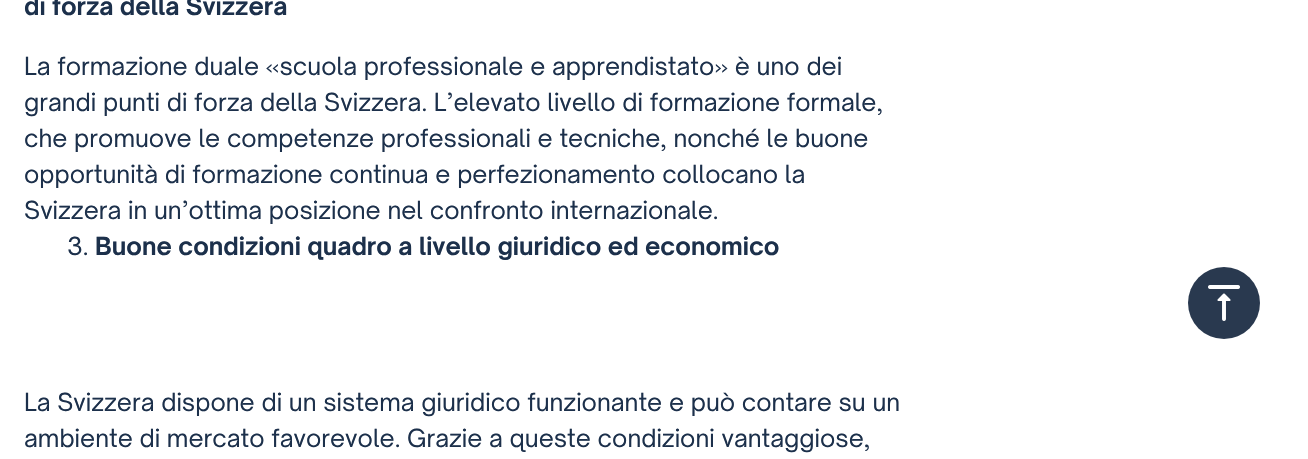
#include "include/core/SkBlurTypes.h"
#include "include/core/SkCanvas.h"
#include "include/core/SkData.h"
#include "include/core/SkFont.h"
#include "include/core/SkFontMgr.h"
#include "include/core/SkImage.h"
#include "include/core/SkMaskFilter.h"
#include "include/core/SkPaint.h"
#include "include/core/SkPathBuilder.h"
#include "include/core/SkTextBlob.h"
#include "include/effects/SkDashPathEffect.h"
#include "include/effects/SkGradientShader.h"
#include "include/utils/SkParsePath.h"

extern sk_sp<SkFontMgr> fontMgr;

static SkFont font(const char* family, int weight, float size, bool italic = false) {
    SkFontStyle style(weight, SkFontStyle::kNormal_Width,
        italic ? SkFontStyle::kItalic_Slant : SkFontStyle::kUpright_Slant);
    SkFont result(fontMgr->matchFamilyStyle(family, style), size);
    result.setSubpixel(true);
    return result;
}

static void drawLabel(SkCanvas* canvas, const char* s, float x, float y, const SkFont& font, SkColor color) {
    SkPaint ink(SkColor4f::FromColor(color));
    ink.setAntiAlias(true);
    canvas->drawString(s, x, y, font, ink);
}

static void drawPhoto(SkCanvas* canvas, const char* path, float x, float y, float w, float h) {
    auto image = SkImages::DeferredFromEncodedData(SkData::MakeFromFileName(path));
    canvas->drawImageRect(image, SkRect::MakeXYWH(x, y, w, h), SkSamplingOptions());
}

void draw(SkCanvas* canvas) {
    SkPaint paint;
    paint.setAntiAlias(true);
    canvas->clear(0xFFFFFFFF);
    SkFont font1 = font("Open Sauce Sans", 700, 24);
    drawLabel(canvas, "di forza della Svizzera", 24, 15, font1, 0xFF1C304B);
    SkFont font2 = font("Open Sauce Sans", 400, 24);
    drawLabel(canvas, "La formazione duale «scuola professionale e apprendistato» è uno dei", 24, 75, font2, 0xFF1C304B);
    drawLabel(canvas, "grandi punti di forza della Svizzera. L’elevato livello di formazione formale,", 24, 111, font2, 0xFF1C304B);
    drawLabel(canvas, "che promuove le competenze professionali e tecniche, nonché le buone", 24, 147, font2, 0xFF1C304B);
    drawLabel(canvas, "opportunità di formazione continua e perfezionamento collocano la", 24, 183, font2, 0xFF1C304B);
    drawLabel(canvas, "Svizzera in un’ottima posizione nel confronto internazionale.", 24, 219, font2, 0xFF1C304B);
    drawLabel(canvas, "3.", 67, 255, font2, 0xFF1C304B);
    drawLabel(canvas, "Buone condizioni quadro a livello giuridico ed economico", 95, 255, font1, 0xFF1C304B);
    drawLabel(canvas, "La Svizzera dispone di un sistema giuridico funzionante e può contare su un", 24, 411, font2, 0xFF1C304B);
    drawLabel(canvas, "ambiente di mercato favorevole. Grazie a queste condizioni vantaggiose,", 24, 447, font2, 0xFF1C304B);
    paint.setColor(0xFF29394F);
    canvas->drawCircle(1224, 303, 36, paint);
    drawPhoto(canvas, "assets/img1.png", 1208, 285, 32, 36);
}
